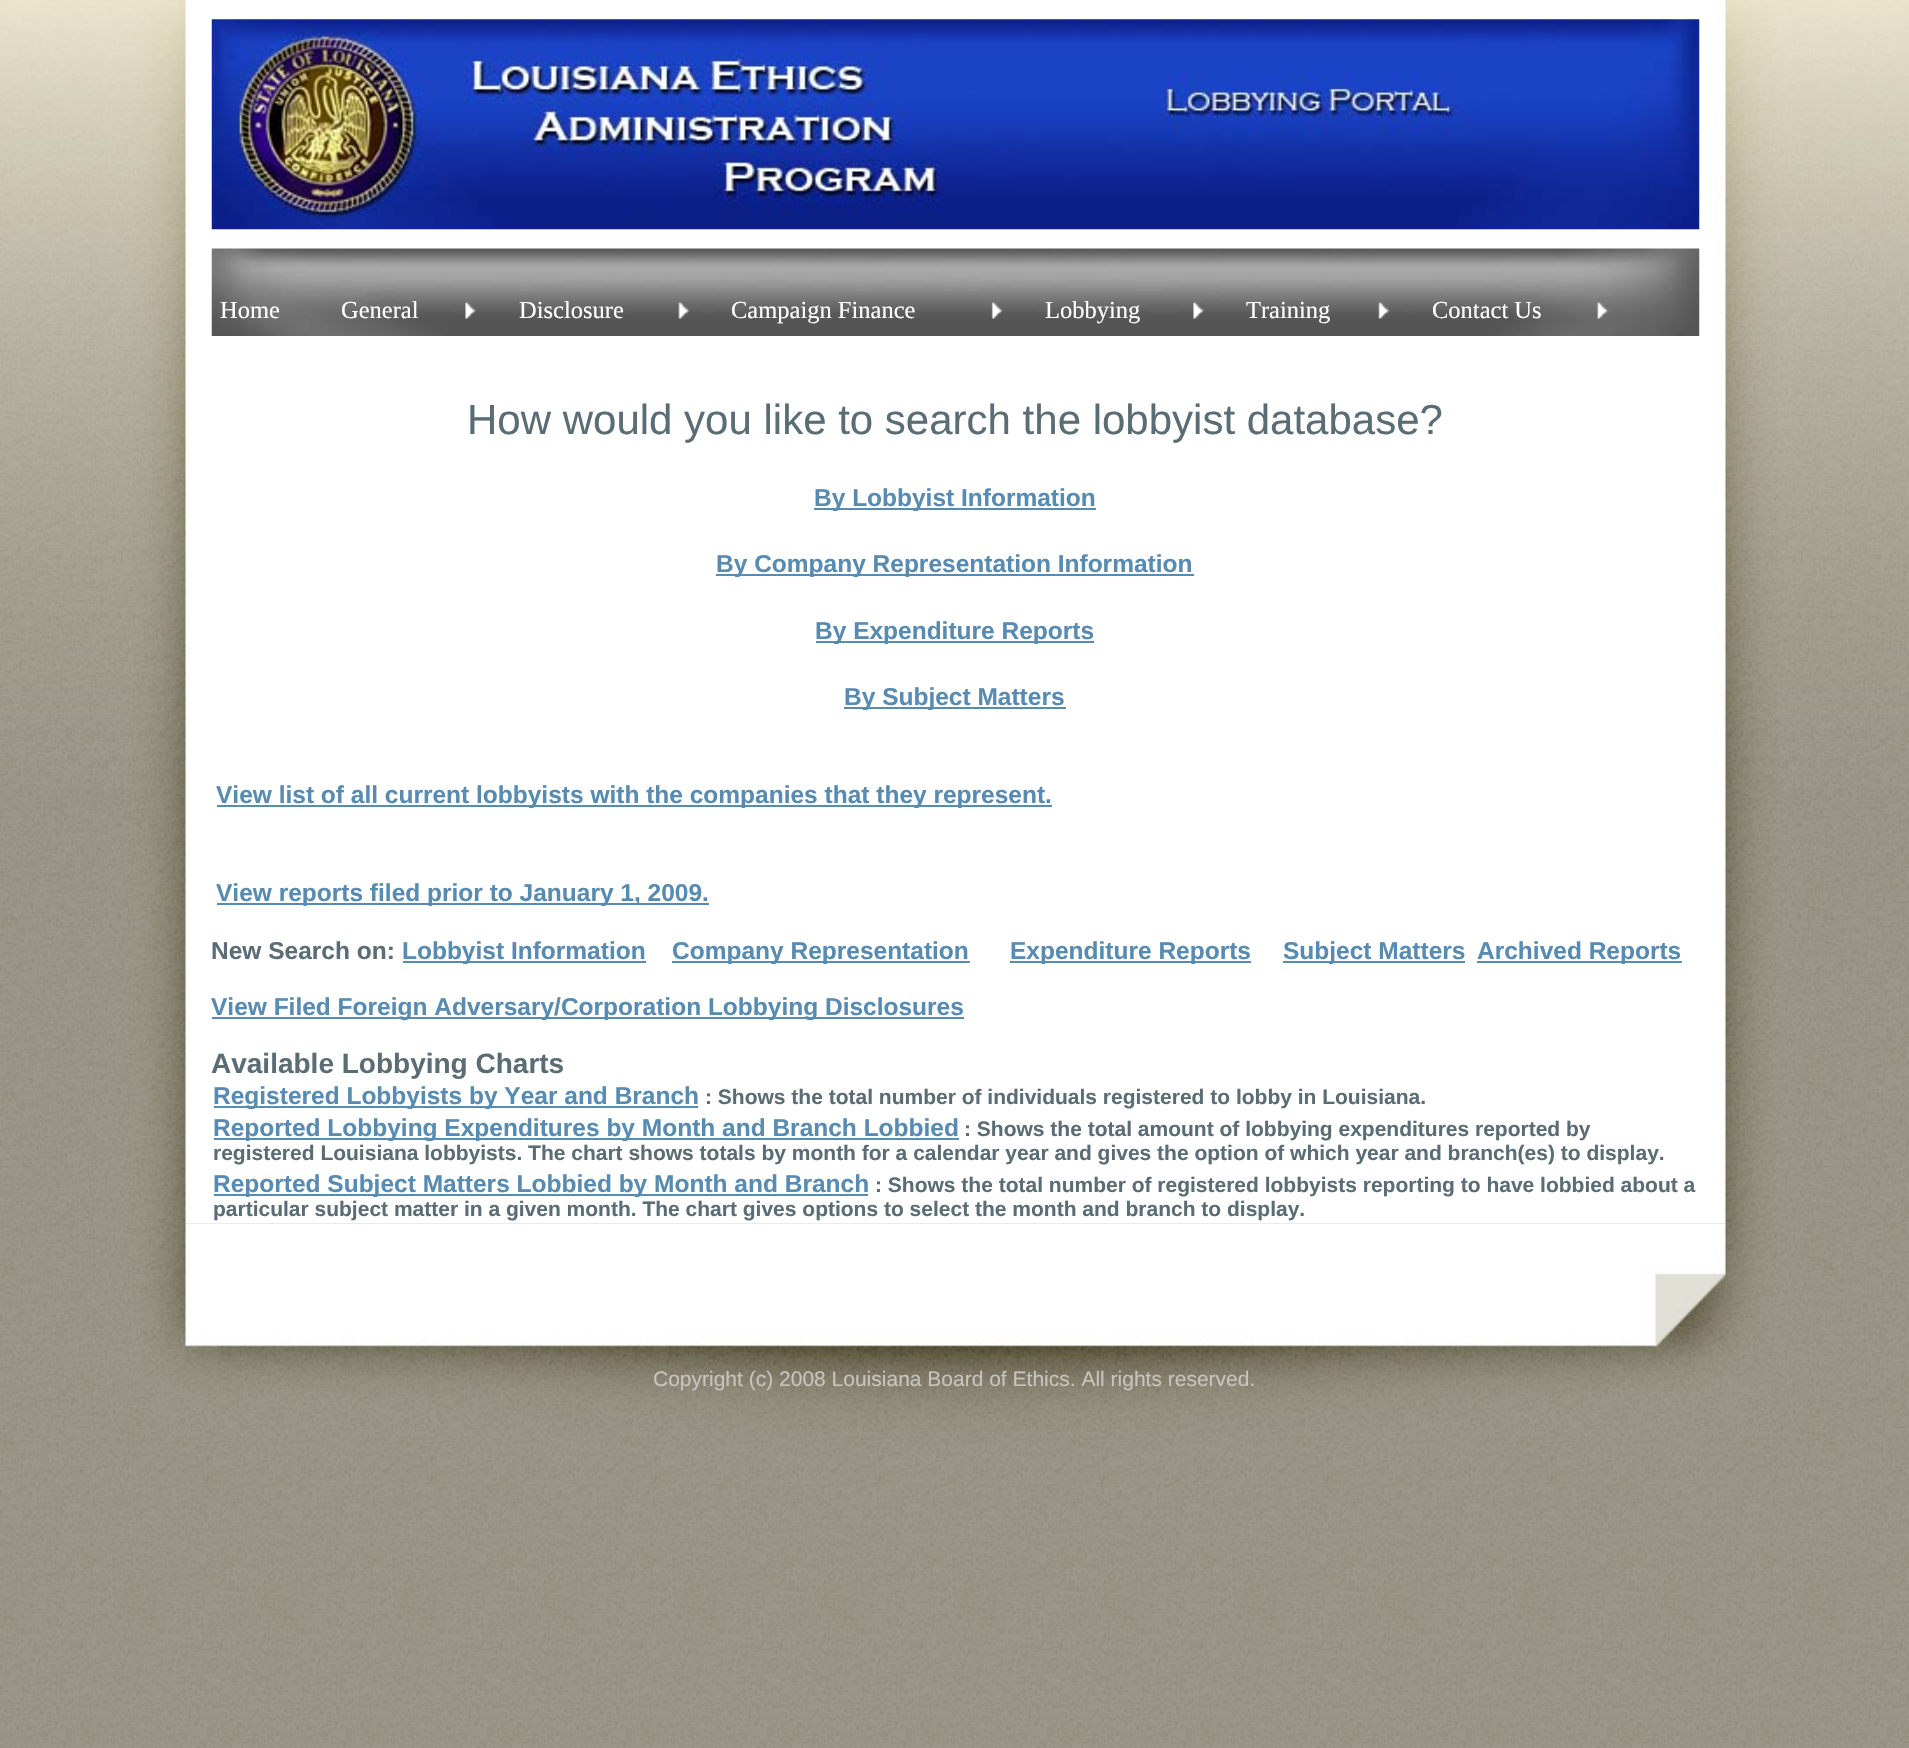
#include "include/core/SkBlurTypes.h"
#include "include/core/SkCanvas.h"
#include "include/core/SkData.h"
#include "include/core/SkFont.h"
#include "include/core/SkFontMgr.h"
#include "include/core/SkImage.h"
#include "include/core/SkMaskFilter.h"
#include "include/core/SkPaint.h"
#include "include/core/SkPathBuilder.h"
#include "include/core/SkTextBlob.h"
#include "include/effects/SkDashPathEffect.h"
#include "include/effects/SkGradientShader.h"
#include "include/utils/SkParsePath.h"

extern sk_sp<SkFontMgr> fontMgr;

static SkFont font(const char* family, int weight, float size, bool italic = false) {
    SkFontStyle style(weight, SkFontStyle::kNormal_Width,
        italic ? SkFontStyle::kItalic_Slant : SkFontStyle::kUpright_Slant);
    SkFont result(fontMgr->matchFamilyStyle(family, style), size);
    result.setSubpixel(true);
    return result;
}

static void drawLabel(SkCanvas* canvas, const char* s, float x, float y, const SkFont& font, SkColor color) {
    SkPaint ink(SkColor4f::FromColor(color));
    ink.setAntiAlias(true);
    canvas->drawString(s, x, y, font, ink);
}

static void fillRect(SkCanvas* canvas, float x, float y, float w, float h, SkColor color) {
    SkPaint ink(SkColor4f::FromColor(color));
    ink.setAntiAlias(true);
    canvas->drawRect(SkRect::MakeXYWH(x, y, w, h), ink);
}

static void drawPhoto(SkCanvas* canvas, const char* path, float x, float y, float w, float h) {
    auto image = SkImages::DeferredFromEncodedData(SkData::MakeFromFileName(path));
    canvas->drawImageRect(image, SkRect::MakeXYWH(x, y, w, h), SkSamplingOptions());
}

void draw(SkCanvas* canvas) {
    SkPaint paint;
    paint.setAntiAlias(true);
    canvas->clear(0xFFFFFFFF);
    drawPhoto(canvas, "assets/img1.png", 0, 787, 1909, 961);
    drawPhoto(canvas, "assets/img2.png", 0, 0, 1909, 788);
    drawPhoto(canvas, "assets/img3.png", 133, 787, 1645, 437);
    drawPhoto(canvas, "assets/img4.png", 133, 0, 1645, 788);
    drawPhoto(canvas, "assets/img5.png", 211, 19, 1489, 211);
    drawPhoto(canvas, "assets/img6.png", 211, 248, 1489, 88);
    SkFont font1 = font("Liberation Serif", 400, 24.5f);
    drawLabel(canvas, "Home", 220, 318, font1, 0xFFFFFFFF);
    drawLabel(canvas, "General", 341, 318, font1, 0xFFFFFFFF);
    drawPhoto(canvas, "assets/img7.png", 465, 302, 12, 17);
    drawLabel(canvas, "Disclosure", 519, 318, font1, 0xFFFFFFFF);
    drawPhoto(canvas, "assets/img8.png", 678, 302, 12, 17);
    drawLabel(canvas, "Campaign Finance", 731, 318, font1, 0xFFFFFFFF);
    drawPhoto(canvas, "assets/img9.png", 991, 302, 12, 17);
    drawLabel(canvas, "Lobbying", 1045, 318, font1, 0xFFFFFFFF);
    drawPhoto(canvas, "assets/img10.png", 1193, 302, 12, 17);
    drawLabel(canvas, "Training", 1246, 318, font1, 0xFFFFFFFF);
    drawPhoto(canvas, "assets/img11.png", 1378, 302, 12, 17);
    drawLabel(canvas, "Contact Us", 1432, 318, font1, 0xFFFFFFFF);
    drawPhoto(canvas, "assets/img12.png", 1597, 302, 12, 17);
    SkFont font2 = font("Liberation Sans", 400, 42);
    drawLabel(canvas, "How would you like to search the lobbyist database?", 467, 434, font2, 0xFF5B6D74);
    fillRect(canvas, 814, 508, 282, 2, 0xFF578BB1);
    SkFont font3 = font("Liberation Sans", 700, 24.5f);
    drawLabel(canvas, "By Lobbyist Information", 814, 506, font3, 0xFF578BB1);
    fillRect(canvas, 716, 574, 478, 2, 0xFF578BB1);
    drawLabel(canvas, "By Company Representation Information", 716, 572, font3, 0xFF578BB1);
    fillRect(canvas, 816, 641, 278, 2, 0xFF578BB1);
    drawLabel(canvas, "By Expenditure Reports", 815, 639, font3, 0xFF578BB1);
    fillRect(canvas, 844, 707, 222, 2, 0xFF578BB1);
    drawLabel(canvas, "By Subject Matters", 844, 705, font3, 0xFF578BB1);
    fillRect(canvas, 217, 805, 835, 2, 0xFF578BB1);
    drawLabel(canvas, "View list of all current lobbyists with the companies that they represent.", 216, 803, font3, 0xFF578BB1);
    fillRect(canvas, 217, 903, 492, 2, 0xFF578BB1);
    drawLabel(canvas, "View reports filed prior to January 1, 2009.", 216, 901, font3, 0xFF578BB1);
    drawLabel(canvas, "New Search on:", 211, 959, font3, 0xFF5B6D74);
    fillRect(canvas, 403, 961, 243, 2, 0xFF578BB1);
    drawLabel(canvas, "Lobbyist Information", 402, 959, font3, 0xFF578BB1);
    fillRect(canvas, 672, 961, 298, 2, 0xFF578BB1);
    drawLabel(canvas, "Company Representation", 672, 959, font3, 0xFF578BB1);
    fillRect(canvas, 1010, 961, 241, 2, 0xFF578BB1);
    drawLabel(canvas, "Expenditure Reports", 1010, 959, font3, 0xFF578BB1);
    fillRect(canvas, 1283, 961, 182, 2, 0xFF578BB1);
    drawLabel(canvas, "Subject Matters", 1283, 959, font3, 0xFF578BB1);
    fillRect(canvas, 1477, 961, 205, 2, 0xFF578BB1);
    drawLabel(canvas, "Archived Reports", 1477, 959, font3, 0xFF578BB1);
    fillRect(canvas, 212, 1017, 752, 2, 0xFF578BB1);
    drawLabel(canvas, "View Filed Foreign Adversary/Corporation Lobbying Disclosures", 211, 1015, font3, 0xFF578BB1);
    SkFont font4 = font("Liberation Sans", 700, 28);
    drawLabel(canvas, "Available Lobbying Charts", 211, 1073, font4, 0xFF5B6D74);
    fillRect(canvas, 214, 1106, 484, 2, 0xFF578BB1);
    drawLabel(canvas, "Registered Lobbyists by Year and Branch", 213, 1104, font3, 0xFF578BB1);
    SkFont font5 = font("Liberation Sans", 700, 21);
    drawLabel(canvas, ": Shows the total number of individuals registered to lobby in Louisiana.", 705, 1104, font5, 0xFF5B6D74);
    fillRect(canvas, 214, 1138, 745, 2, 0xFF578BB1);
    drawLabel(canvas, "Reported Lobbying Expenditures by Month and Branch Lobbied", 213, 1136, font3, 0xFF578BB1);
    drawLabel(canvas, ": Shows the total amount of lobbying expenditures reported by", 964, 1136, font5, 0xFF5B6D74);
    drawLabel(canvas, "registered Louisiana lobbyists. The chart shows totals by month for a calendar year and gives the option of which year and branch(es) to display.", 213, 1160, font5, 0xFF5B6D74);
    fillRect(canvas, 214, 1194, 654, 2, 0xFF578BB1);
    drawLabel(canvas, "Reported Subject Matters Lobbied by Month and Branch", 213, 1192, font3, 0xFF578BB1);
    drawLabel(canvas, ": Shows the total number of registered lobbyists reporting to have lobbied about a", 875, 1192, font5, 0xFF5B6D74);
    drawLabel(canvas, "particular subject matter in a given month. The chart gives options to select the month and branch to display.", 213, 1216, font5, 0xFF5B6D74);
    drawPhoto(canvas, "assets/img13.png", 133, 1223, 1645, 263);
    SkFont font6 = font("Liberation Sans", 400, 21);
    drawLabel(canvas, "Copyright (c) 2008 Louisiana Board of Ethics. All rights reserved.", 653, 1386, font6, 0xFFC6C4BC);
}
